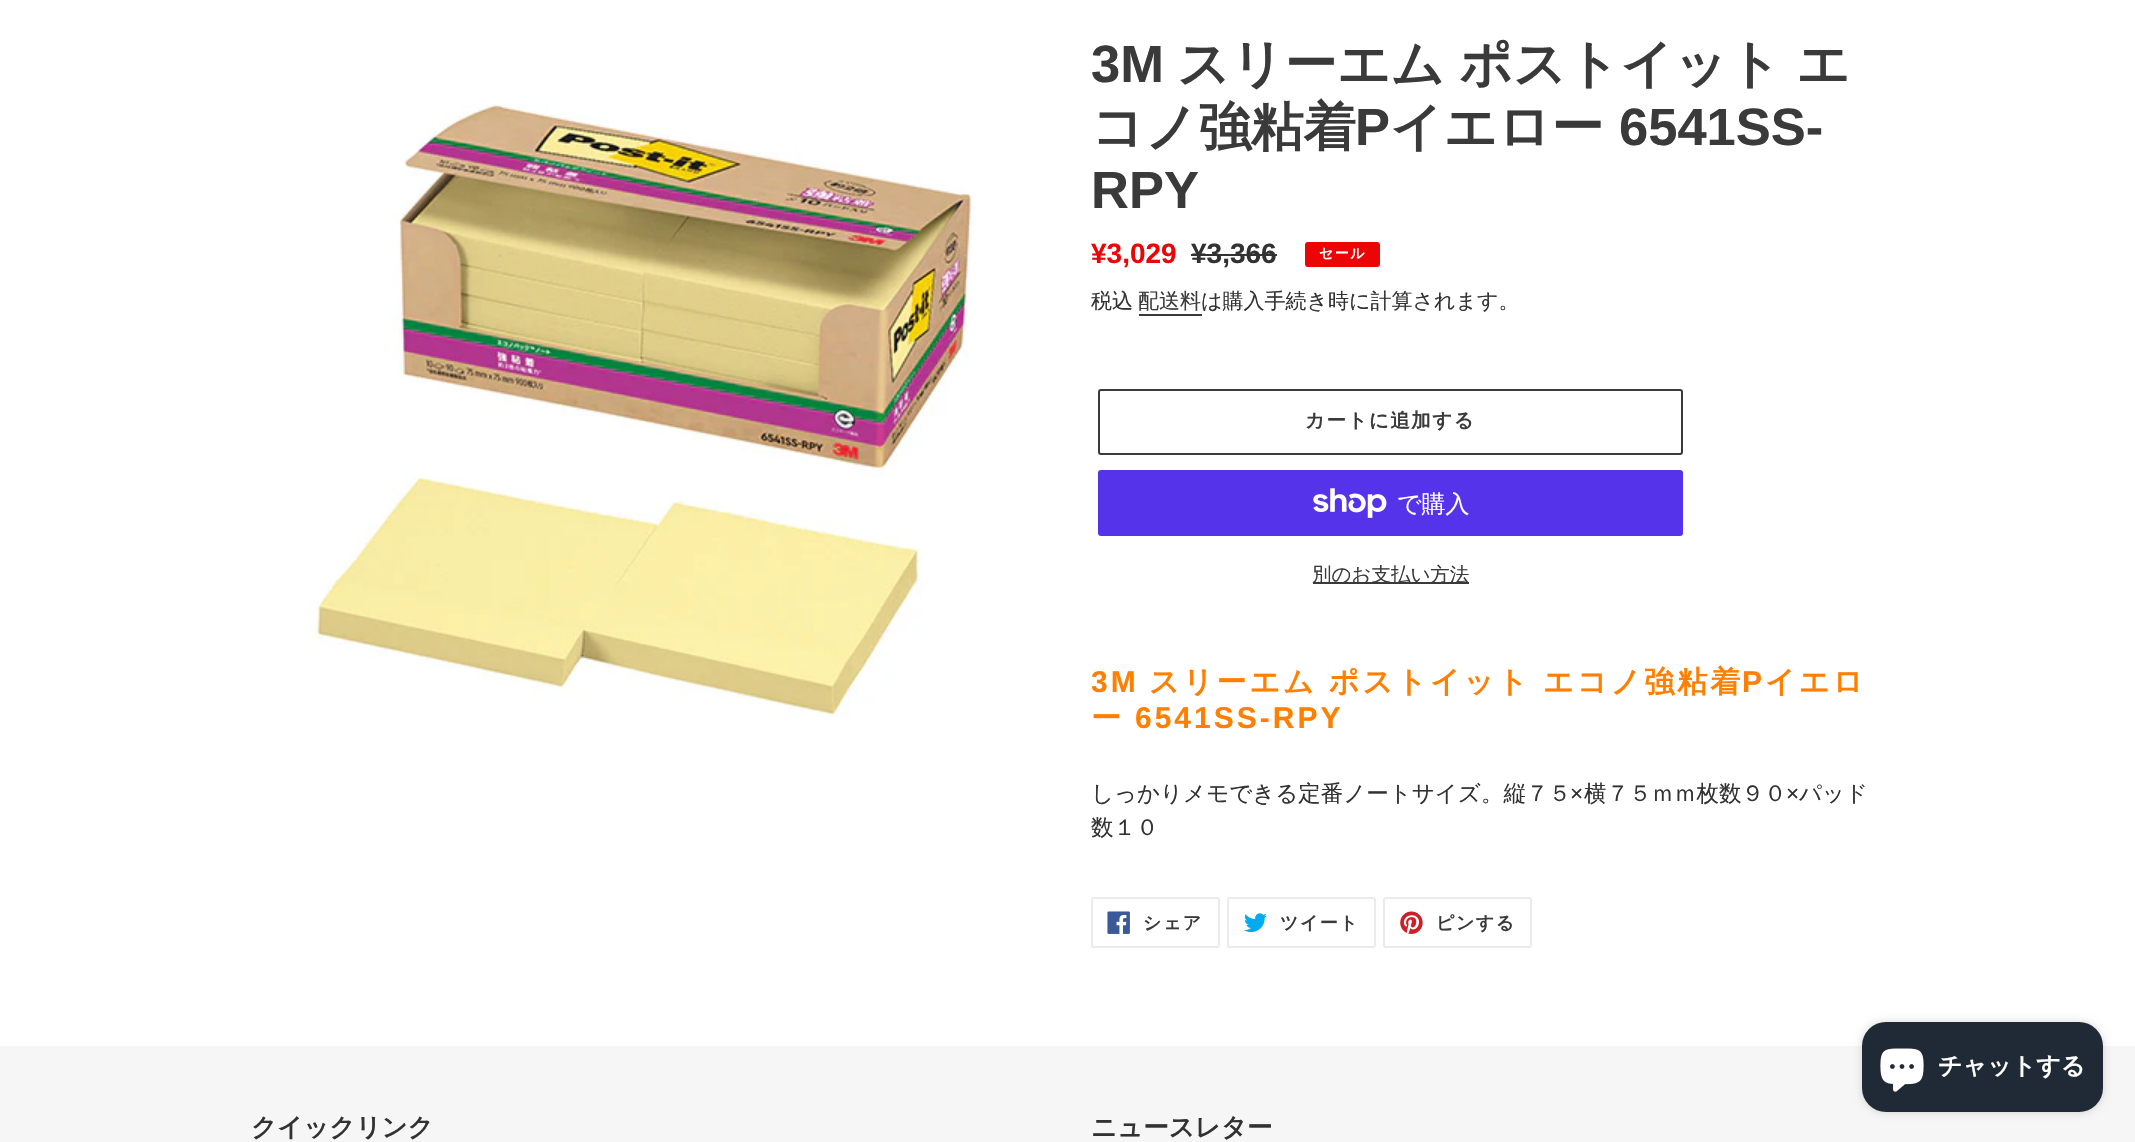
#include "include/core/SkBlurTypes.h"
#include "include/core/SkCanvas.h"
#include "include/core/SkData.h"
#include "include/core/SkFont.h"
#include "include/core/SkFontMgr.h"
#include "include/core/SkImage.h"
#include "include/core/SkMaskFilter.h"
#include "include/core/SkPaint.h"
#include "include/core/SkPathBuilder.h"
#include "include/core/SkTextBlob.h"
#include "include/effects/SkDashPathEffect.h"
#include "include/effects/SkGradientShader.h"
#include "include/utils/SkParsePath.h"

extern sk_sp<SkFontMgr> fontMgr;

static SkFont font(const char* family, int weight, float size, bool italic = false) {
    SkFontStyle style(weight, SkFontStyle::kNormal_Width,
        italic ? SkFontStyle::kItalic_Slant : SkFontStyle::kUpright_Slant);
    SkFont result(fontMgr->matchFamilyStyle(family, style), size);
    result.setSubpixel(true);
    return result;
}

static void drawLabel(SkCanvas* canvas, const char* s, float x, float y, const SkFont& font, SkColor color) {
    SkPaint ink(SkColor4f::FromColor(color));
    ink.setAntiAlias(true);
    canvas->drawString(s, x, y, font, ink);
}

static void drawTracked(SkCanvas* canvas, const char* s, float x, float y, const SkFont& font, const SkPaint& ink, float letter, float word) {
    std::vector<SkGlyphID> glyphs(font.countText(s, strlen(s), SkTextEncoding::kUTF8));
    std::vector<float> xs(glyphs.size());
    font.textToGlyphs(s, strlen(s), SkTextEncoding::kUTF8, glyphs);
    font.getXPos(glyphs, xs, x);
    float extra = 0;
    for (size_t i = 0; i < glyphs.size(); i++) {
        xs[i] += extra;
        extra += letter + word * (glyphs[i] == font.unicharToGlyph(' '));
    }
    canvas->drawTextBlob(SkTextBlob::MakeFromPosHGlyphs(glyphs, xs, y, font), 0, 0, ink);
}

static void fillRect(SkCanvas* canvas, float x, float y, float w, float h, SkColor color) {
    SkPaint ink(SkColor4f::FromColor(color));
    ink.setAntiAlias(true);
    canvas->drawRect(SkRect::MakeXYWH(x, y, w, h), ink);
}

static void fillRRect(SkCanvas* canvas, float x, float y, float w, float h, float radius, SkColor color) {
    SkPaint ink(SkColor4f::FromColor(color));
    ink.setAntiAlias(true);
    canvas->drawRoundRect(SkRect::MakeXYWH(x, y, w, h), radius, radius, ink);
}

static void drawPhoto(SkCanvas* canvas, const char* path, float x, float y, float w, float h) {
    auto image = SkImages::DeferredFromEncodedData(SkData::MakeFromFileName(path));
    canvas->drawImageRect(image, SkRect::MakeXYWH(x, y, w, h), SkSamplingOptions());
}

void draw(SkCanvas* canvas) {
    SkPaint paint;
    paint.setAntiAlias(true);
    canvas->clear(0xFFFFFFFF);
    drawPhoto(canvas, "assets/img1.png", 309, 104, 666, 613);
    SkFont font1 = font("Liberation Sans", 700, 52.5f);
    drawLabel(canvas, "3M", 1091, 82, font1, 0xFF3A3A3A);
    SkFont font2 = font("WenQuanYi Zen Hei", 700, 52.5f);
    paint.setColor(0xFF3A3A3A);
    drawTracked(canvas, "スリーエム ポストイット エ", 1177, 82, font2, paint, 0, -1);
    drawLabel(canvas, "コノ強粘着", 1091, 145, font2, 0xFF3A3A3A);
    drawLabel(canvas, "P", 1355, 145, font1, 0xFF3A3A3A);
    drawLabel(canvas, "イエロー", 1390, 145, font2, 0xFF3A3A3A);
    drawLabel(canvas, "6541SS-", 1619, 145, font1, 0xFF3A3A3A);
    drawLabel(canvas, "RPY", 1091, 208, font1, 0xFF3A3A3A);
    SkFont font3 = font("Liberation Sans", 700, 28);
    drawLabel(canvas, "¥3,029", 1091, 263, font3, 0xFFEA0606);
    drawLabel(canvas, "¥3,366", 1191, 263, font3, 0xFF333232);
    fillRect(canvas, 1191, 254, 86, 2, 0xFF333232);
    paint.setColor(0xFFEA0606);
    canvas->drawRoundRect(SkRect::MakeXYWH(1306, 243, 73, 23), 2, 2, paint);
    paint.setStroke(true);
    paint.setStrokeWidth(2);
    canvas->drawRoundRect(SkRect::MakeXYWH(1306, 243, 73, 23), 2, 2, paint);
    SkFont font4 = font("WenQuanYi Zen Hei", 700, 14);
    paint.setStroke(false);
    paint.setColor(0xFFFFFFFF);
    drawTracked(canvas, "セール", 1319, 258, font4, paint, 1.5f, 0);
    SkFont font5 = font("WenQuanYi Zen Hei", 500, 21);
    drawLabel(canvas, "税込", 1091, 308, font5, 0xFF333232);
    drawLabel(canvas, "配送料", 1138, 308, font5, 0xFF3A3A3A);
    fillRect(canvas, 1139, 314, 63, 2, 0xFF3A3A3A);
    drawLabel(canvas, "は購入手続き時に計算されます。", 1201, 308, font5, 0xFF333232);
    paint.setStroke(true);
    paint.setColor(0xFF3A3A3A);
    canvas->drawRoundRect(SkRect::MakeXYWH(1099, 390, 583, 64), 2, 2, paint);
    SkFont font6 = font("WenQuanYi Zen Hei", 700, 19.5f);
    paint.setStroke(false);
    drawTracked(canvas, "カートに追加する", 1305, 427, font6, paint, 1.5f, 0);
    fillRRect(canvas, 1098, 470, 585, 66, 3, 0xFF5433EB);
    drawPhoto(canvas, "assets/img2.png", 1313, 488, 74, 30);
    SkFont font7 = font("WenQuanYi Zen Hei", 500, 24);
    drawLabel(canvas, "で購入", 1397, 512, font7, 0xFFFFFFFF);
    fillRect(canvas, 1313, 582, 156, 2, 0xFF3A3A3A);
    SkFont font8 = font("WenQuanYi Zen Hei", 500, 19.5f);
    drawLabel(canvas, "別のお支払い方法", 1312, 581, font8, 0xFF3A3A3A);
    SkFont font9 = font("Liberation Sans", 700, 30);
    paint.setColor(0xFFFF8000);
    drawTracked(canvas, "3M", 1091, 692, font9, paint, 3, 0);
    SkFont font10 = font("WenQuanYi Zen Hei", 700, 30);
    drawTracked(canvas, "スリーエム ポストイット エコノ強粘着", 1149, 692, font10, paint, 3, 0);
    drawTracked(canvas, "P", 1742, 692, font9, paint, 3, 0);
    drawTracked(canvas, "イエロ", 1765, 692, font10, paint, 3, 0);
    drawTracked(canvas, "ー", 1091, 728, font10, paint, 3, 0);
    drawTracked(canvas, "6541SS-RPY", 1135, 728, font9, paint, 3, 0);
    SkFont font11 = font("WenQuanYi Zen Hei", 500, 22.5f);
    drawLabel(canvas, "しっかりメモできる定番ノートサイズ。縦７５", 1091, 801, font11, 0xFF333232);
    SkFont font12 = font("Liberation Sans", 400, 22.5f);
    drawLabel(canvas, "×", 1570, 801, font12, 0xFF333232);
    drawLabel(canvas, "横７５ｍｍ枚数９０", 1584, 801, font11, 0xFF333232);
    drawLabel(canvas, "×", 1786, 801, font12, 0xFF333232);
    drawLabel(canvas, "パッド", 1799, 801, font11, 0xFF333232);
    drawLabel(canvas, "数１０", 1091, 835, font11, 0xFF333232);
    paint.setStroke(true);
    paint.setColor(0xFFEBEBEB);
    canvas->drawRoundRect(SkRect::MakeXYWH(1092, 898, 127, 49), 2, 2, paint);
    drawPhoto(canvas, "assets/img3.png", 1107, 911, 23, 23);
    SkFont font13 = font("WenQuanYi Zen Hei", 700, 18);
    paint.setStroke(false);
    paint.setColor(0xFF3A3A3A);
    drawTracked(canvas, "シェア", 1143, 929, font13, paint, 1.5f, 0);
    paint.setStroke(true);
    paint.setColor(0xFFEBEBEB);
    canvas->drawRoundRect(SkRect::MakeXYWH(1228, 898, 147, 49), 2, 2, paint);
    drawPhoto(canvas, "assets/img4.png", 1244, 913, 23, 20);
    paint.setStroke(false);
    paint.setColor(0xFF3A3A3A);
    drawTracked(canvas, "ツイート", 1280, 929, font13, paint, 1.5f, 0);
    paint.setStroke(true);
    paint.setColor(0xFFEBEBEB);
    canvas->drawRoundRect(SkRect::MakeXYWH(1384, 898, 147, 49), 2, 2, paint);
    drawPhoto(canvas, "assets/img5.png", 1400, 911, 23, 23);
    paint.setStroke(false);
    paint.setColor(0xFF3A3A3A);
    drawTracked(canvas, "ピンする", 1436, 929, font13, paint, 1.5f, 0);
    fillRect(canvas, 0, 1046, 2135, 96, 0xFFF6F6F6);
    SkFont font14 = font("WenQuanYi Zen Hei", 700, 25.5f);
    drawLabel(canvas, "クイックリンク", 251, 1136, font14, 0xFF333232);
    drawLabel(canvas, "ニュースレター", 1091, 1136, font14, 0xFF333232);
    paint.setColor(0x26000000);
    paint.setMaskFilter(SkMaskFilter::MakeBlur(kNormal_SkBlurStyle, 4));
    canvas->drawRoundRect(SkRect::MakeXYWH(1862, 1022, 241, 90), 24, 24, paint);
    paint.setMaskFilter(nullptr);
    fillRRect(canvas, 1862, 1022, 241, 90, 24, 0xFF202A36);
    drawPhoto(canvas, "assets/img6.png", 1880, 1048, 44, 44);
    SkFont font15 = font("WenQuanYi Zen Hei", 700, 24);
    drawLabel(canvas, "チャットする", 1938, 1074, font15, 0xFFFFFFFF);
}
